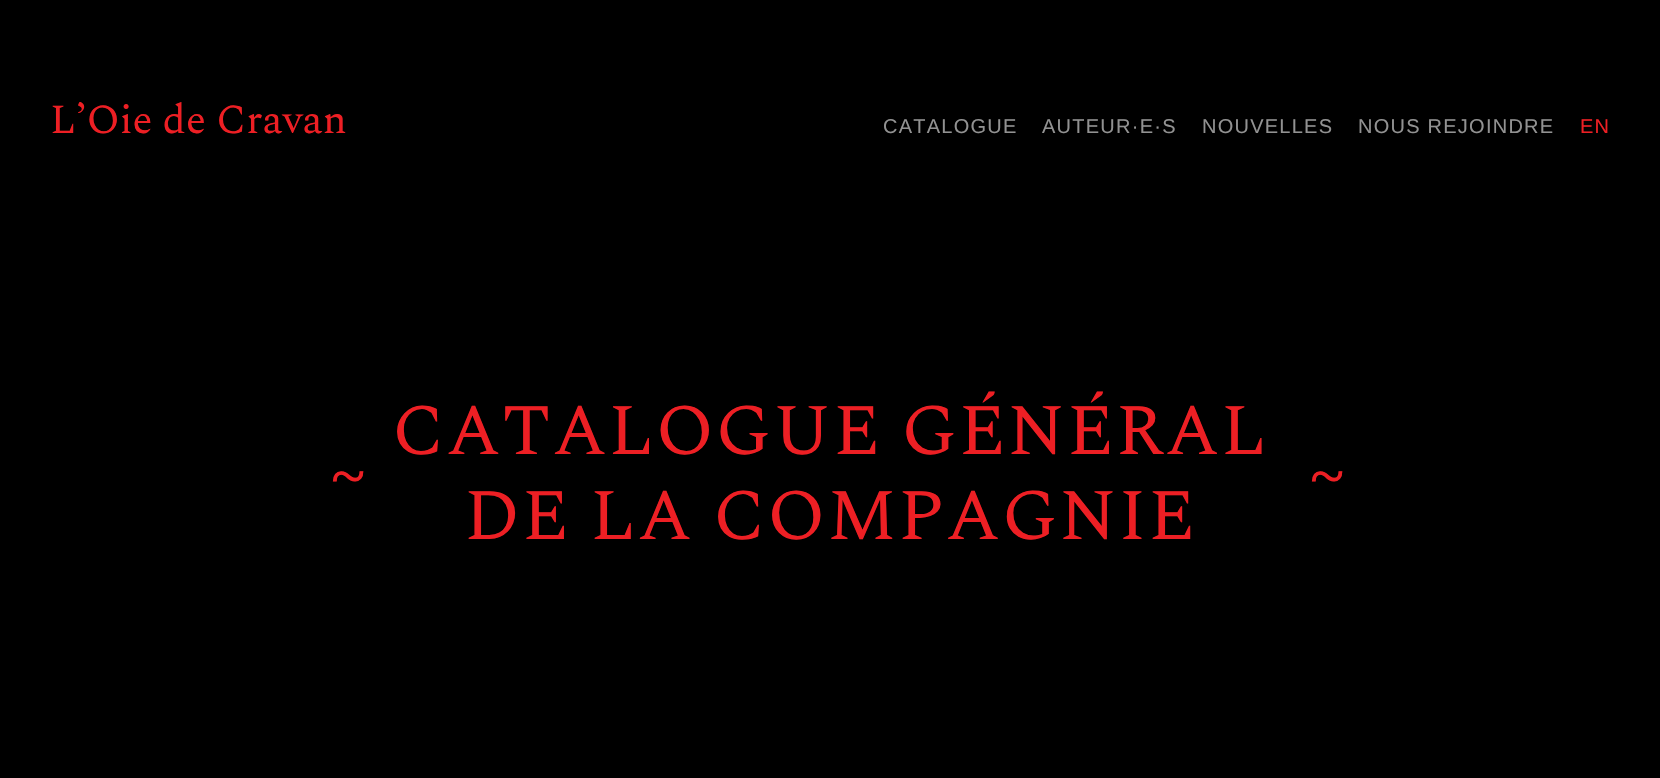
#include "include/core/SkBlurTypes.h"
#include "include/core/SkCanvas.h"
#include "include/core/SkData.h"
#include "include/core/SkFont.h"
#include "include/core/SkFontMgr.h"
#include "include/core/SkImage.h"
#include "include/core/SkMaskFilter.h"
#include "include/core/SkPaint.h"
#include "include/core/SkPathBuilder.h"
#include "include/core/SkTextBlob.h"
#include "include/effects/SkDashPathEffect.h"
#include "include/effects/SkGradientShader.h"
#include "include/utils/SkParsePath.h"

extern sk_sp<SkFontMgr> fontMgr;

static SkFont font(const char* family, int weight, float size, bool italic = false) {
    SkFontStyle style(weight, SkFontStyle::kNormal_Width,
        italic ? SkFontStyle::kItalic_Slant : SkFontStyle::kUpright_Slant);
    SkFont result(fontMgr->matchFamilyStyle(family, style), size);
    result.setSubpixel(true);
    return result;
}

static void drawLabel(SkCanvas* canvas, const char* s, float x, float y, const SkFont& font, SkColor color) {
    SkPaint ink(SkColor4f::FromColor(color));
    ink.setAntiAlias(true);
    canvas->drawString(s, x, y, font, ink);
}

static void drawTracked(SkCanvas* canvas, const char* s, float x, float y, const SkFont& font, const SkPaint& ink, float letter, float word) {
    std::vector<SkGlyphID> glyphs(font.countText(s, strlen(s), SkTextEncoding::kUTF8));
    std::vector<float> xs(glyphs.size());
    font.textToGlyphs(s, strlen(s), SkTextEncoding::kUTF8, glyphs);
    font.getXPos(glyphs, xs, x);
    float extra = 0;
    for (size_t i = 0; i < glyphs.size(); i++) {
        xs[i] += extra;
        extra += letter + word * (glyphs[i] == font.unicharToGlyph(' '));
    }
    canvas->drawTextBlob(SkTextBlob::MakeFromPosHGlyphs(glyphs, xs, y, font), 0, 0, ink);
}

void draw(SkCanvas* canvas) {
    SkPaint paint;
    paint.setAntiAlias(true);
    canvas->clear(0xFF000000);
    SkFont font1 = font("Spectral", 400, 41.25f);
    drawLabel(canvas, "L’Oie de Cravan", 50, 133, font1, 0xFFED1F24);
    SkFont font2 = font("Arimo", 400, 20);
    paint.setColor(0xFF929292);
    drawTracked(canvas, "CATALOGUE", 883, 133, font2, paint, 1.25f, 0);
    drawTracked(canvas, "AUTEUR·E·S", 1042, 133, font2, paint, 1.25f, 0);
    drawTracked(canvas, "NOUVELLES", 1202, 133, font2, paint, 1.25f, 0);
    drawTracked(canvas, "NOUS REJOINDRE", 1358, 133, font2, paint, 1.25f, 0);
    paint.setColor(0xFFED1F24);
    drawTracked(canvas, "EN", 1580, 133, font2, paint, 1.25f, 0);
    SkFont font3 = font("Spectral", 400, 72.5f);
    drawTracked(canvas, "~", 330, 496, font3, paint, 1.5f, 0);
    drawTracked(canvas, "CATALOGUE GÉNÉRAL", 392, 454, font3, paint, 1.5f, 0);
    drawTracked(canvas, "DE LA COMPAGNIE", 464, 539, font3, paint, 1.5f, 0);
    drawTracked(canvas, "~", 1309, 496, font3, paint, 1.5f, 0);
}
